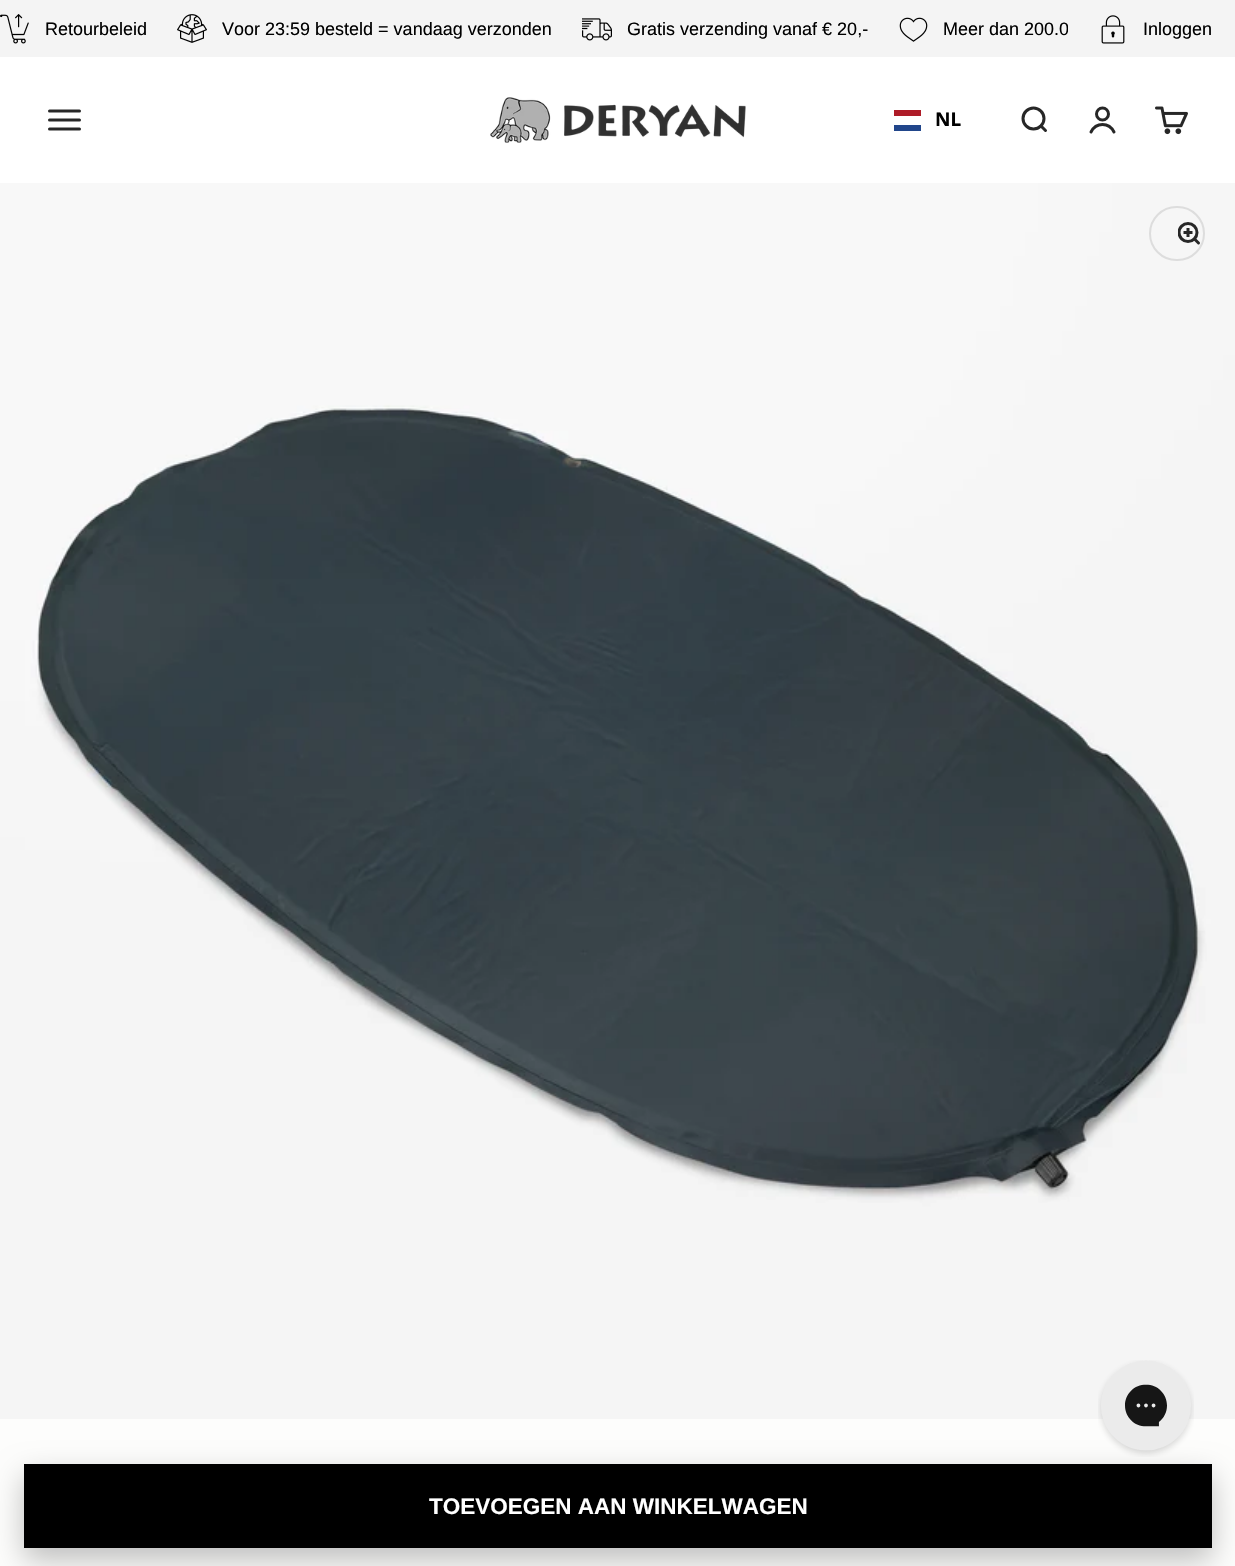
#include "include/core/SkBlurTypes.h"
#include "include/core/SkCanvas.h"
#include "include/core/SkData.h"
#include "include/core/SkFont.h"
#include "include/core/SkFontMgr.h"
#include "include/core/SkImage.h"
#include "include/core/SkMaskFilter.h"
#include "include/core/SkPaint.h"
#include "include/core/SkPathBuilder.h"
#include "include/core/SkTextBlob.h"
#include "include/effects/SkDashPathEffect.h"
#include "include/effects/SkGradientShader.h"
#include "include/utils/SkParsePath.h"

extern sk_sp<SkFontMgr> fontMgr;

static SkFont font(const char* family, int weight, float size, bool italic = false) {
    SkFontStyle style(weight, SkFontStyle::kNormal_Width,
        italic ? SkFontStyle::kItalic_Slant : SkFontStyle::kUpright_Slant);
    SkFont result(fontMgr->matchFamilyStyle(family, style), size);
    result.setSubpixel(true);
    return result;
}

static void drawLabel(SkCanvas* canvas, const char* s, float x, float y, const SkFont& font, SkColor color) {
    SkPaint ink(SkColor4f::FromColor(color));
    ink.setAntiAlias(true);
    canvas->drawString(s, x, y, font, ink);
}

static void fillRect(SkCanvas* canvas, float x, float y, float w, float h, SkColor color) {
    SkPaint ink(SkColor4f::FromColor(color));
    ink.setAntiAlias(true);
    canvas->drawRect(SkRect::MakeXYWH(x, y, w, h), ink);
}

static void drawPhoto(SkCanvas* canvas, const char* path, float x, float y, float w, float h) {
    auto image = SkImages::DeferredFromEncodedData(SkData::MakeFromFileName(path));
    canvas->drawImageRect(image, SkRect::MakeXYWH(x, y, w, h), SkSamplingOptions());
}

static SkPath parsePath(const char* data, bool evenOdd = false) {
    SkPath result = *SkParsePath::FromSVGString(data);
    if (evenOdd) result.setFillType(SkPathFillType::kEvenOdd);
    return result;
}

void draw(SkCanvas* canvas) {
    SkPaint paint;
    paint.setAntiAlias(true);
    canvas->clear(0xFFFDFDFC);
    fillRect(canvas, 0, 0, 1235, 57, 0xFFF4F4F4);
    drawPhoto(canvas, "assets/img1.png", 0, 14, 29, 30);
    SkFont font1 = font("Liberation Sans", 400, 18);
    drawLabel(canvas, "Retourbeleid", 45, 35, font1, 0xFF000000);
    drawPhoto(canvas, "assets/img2.png", 177, 14, 30, 29);
    drawLabel(canvas, "Voor 23:59 besteld = vandaag verzonden", 222, 35, font1, 0xFF000000);
    drawPhoto(canvas, "assets/img3.png", 582, 18, 30, 23);
    drawLabel(canvas, "Gratis verzending vanaf € 20,-", 627, 35, font1, 0xFF000000);
    drawPhoto(canvas, "assets/img4.png", 899, 17, 29, 25);
    canvas->save();
    canvas->clipRect(SkRect::MakeXYWH(0, 14, 1068, 30));
    drawLabel(canvas, "Meer dan 200.0", 943, 35, font1, 0xFF000000);
    canvas->restore();
    drawPhoto(canvas, "assets/img5.png", 1101, 15, 24, 29);
    drawLabel(canvas, "Inloggen", 1143, 35, font1, 0xFF000000);
    fillRect(canvas, 0, 57, 1235, 126, 0xFFFFFFFF);
    paint.setStroke(true);
    paint.setStrokeWidth(3);
    paint.setStrokeCap(SkPaint::kRound_Cap);
    paint.setColor(0xFF272727);
    canvas->drawPath(parsePath("M49.5 111H79.5M49.5 120H79.5M49.5 129H79.5"), paint);
    drawPhoto(canvas, "assets/img6.png", 490, 97, 256, 46);
    fillRect(canvas, 894, 110, 27, 6, 0xFFAE1C28);
    fillRect(canvas, 894, 125, 27, 6, 0xFF21468B);
    SkFont font2 = font("Noto Sans", 700, 19);
    drawLabel(canvas, "NL", 935, 126, font2, 0xFF000000);
    paint.setStrokeCap(SkPaint::kButt_Cap);
    canvas->drawCircle(1033.5f, 118.5f, 10.5f, paint);
    paint.setStrokeCap(SkPaint::kRound_Cap);
    paint.setStrokeJoin(SkPaint::kRound_Join);
    canvas->drawPath(parsePath("M1041 126L1045.5 130.5"), paint);
    paint.setStrokeCap(SkPaint::kButt_Cap);
    paint.setStrokeJoin(SkPaint::kMiter_Join);
    canvas->drawCircle(1102.5f, 114, 6, paint);
    paint.setStrokeCap(SkPaint::kRound_Cap);
    canvas->drawPath(parsePath("M1091 132C1096 122 1109 122 1114 132"), paint);
    drawPhoto(canvas, "assets/img7.png", 1155, 106, 33, 29);
    drawPhoto(canvas, "assets/img9.png", 0, 183, 1235, 1236);
    paint.setStroke(false);
    paint.setColor(0x40000000);
    paint.setMaskFilter(SkMaskFilter::MakeBlur(kNormal_SkBlurStyle, 15));
    canvas->drawRect(SkRect::MakeXYWH(24, 1476, 1188, 84), paint);
    paint.setMaskFilter(nullptr);
    drawPhoto(canvas, "assets/img8.png", 1098, 1360, 96, 97);
    paint.setStroke(true);
    paint.setStrokeWidth(2);
    paint.setStrokeCap(SkPaint::kButt_Cap);
    paint.setColor(0xFFDDDDDD);
    canvas->drawRoundRect(SkRect::MakeXYWH(1150, 207, 54, 53), 26.5f, 26.5f, paint);
    canvas->save();
    canvas->clipRect(SkRect::MakeXYWH(1178, 222, 22, 23));
    paint.setStrokeWidth(3);
    paint.setColor(0xFF272727);
    canvas->drawCircle(1188, 232.5f, 9, paint);
    canvas->restore();
    paint.setStrokeCap(SkPaint::kRound_Cap);
    paint.setStrokeJoin(SkPaint::kRound_Join);
    canvas->drawPath(parsePath("M1194.5 239L1198.5 243"), paint);
    paint.setStrokeCap(SkPaint::kButt_Cap);
    paint.setStrokeJoin(SkPaint::kMiter_Join);
    canvas->drawPath(parsePath("M1188 228V237M1183.5 232.5H1192.5"), paint);
    fillRect(canvas, 24, 1464, 1188, 84, 0xFF000000);
    SkFont font3 = font("Liberation Sans", 700, 22.5f);
    drawLabel(canvas, "TOEVOEGEN AAN WINKELWAGEN", 429, 1514, font3, 0xFFFFFFFF);
}
